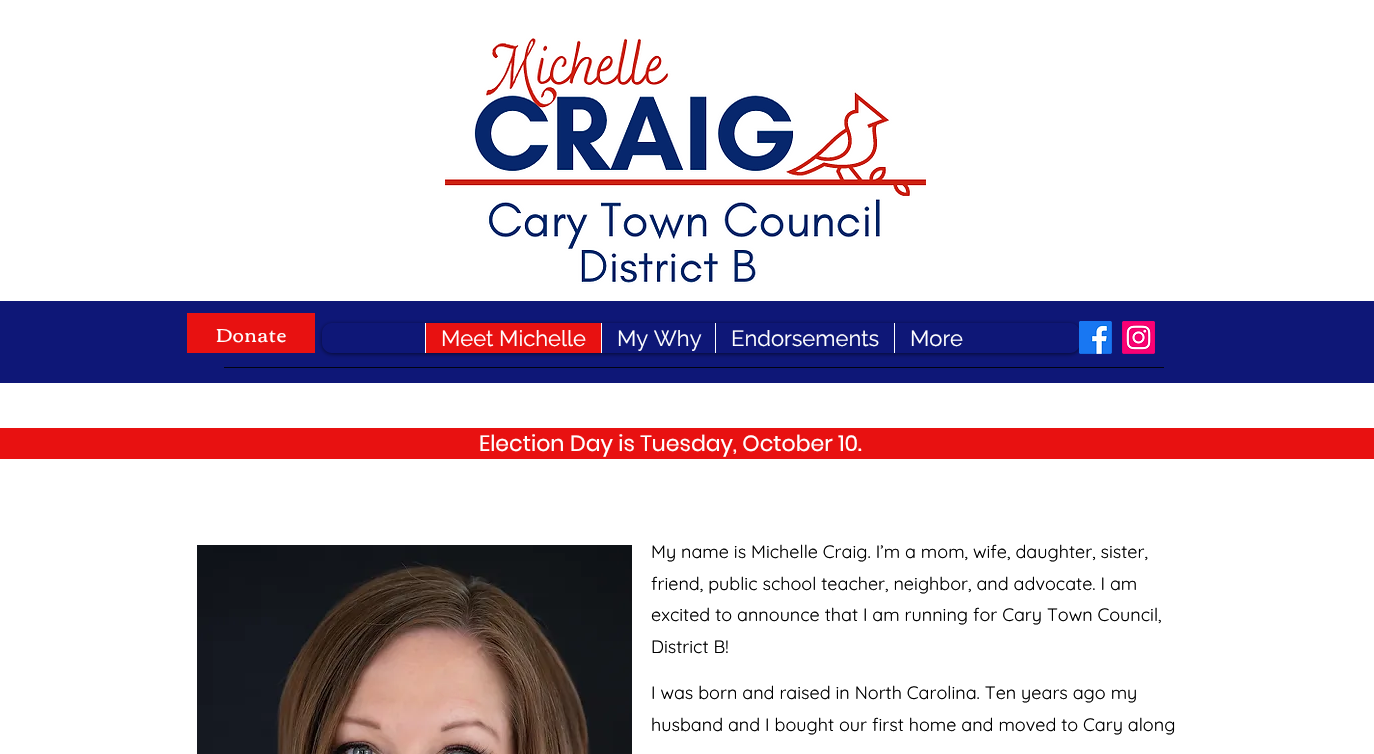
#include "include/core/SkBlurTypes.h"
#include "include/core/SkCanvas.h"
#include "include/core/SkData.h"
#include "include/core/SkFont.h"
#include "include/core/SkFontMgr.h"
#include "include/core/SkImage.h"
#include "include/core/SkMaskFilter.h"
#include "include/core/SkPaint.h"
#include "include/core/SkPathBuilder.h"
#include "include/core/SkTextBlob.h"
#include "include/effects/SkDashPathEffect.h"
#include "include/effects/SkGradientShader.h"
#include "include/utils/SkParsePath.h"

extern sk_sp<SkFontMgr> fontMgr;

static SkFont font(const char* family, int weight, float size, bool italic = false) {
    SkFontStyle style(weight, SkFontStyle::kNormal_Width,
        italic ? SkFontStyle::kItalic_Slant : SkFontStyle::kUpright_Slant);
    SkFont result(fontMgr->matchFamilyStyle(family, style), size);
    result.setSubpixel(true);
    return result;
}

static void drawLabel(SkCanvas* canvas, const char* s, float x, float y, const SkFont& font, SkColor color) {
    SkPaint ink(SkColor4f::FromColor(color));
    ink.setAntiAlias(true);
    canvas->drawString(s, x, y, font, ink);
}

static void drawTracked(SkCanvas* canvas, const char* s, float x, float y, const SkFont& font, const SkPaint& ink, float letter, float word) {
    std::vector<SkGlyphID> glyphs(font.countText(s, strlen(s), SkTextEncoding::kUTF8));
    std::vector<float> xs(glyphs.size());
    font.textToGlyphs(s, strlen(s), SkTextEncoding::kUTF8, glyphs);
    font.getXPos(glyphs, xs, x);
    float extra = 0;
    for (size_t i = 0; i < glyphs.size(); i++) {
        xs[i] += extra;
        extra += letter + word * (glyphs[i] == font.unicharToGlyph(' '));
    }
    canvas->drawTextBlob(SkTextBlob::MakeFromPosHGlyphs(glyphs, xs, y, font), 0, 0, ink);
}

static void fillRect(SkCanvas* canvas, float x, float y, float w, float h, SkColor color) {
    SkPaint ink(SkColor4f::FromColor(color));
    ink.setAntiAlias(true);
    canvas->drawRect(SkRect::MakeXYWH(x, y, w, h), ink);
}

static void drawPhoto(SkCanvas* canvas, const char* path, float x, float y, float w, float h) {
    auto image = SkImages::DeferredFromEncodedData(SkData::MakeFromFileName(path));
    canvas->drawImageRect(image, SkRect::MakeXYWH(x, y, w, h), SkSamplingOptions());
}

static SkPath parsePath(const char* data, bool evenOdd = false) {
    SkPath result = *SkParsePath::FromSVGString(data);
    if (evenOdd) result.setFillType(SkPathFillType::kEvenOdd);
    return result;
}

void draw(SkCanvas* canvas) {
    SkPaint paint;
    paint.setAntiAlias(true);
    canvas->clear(0xFFFFFFFF);
    drawPhoto(canvas, "assets/img1.png", 445, 38, 481, 247);
    fillRect(canvas, 0, 301, 1374, 82, 0xFF0E1777);
    fillRect(canvas, 187, 313, 128, 40, 0xFFE81111);
    SkFont font1 = font("Corben", 400, 19);
    paint.setColor(0xFFFFFFFF);
    drawTracked(canvas, "Donate", 216, 342, font1, paint, 1, 0);
    canvas->save();
    canvas->clipPath(parsePath("M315 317H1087V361H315ZM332 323H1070C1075.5 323 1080 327.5 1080 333V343C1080 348.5 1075.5 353 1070 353H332C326.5 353 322 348.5 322 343V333C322 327.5 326.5 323 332 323Z", true), true);
    paint.setColor(0x99000000);
    paint.setMaskFilter(SkMaskFilter::MakeBlur(kNormal_SkBlurStyle, 2));
    canvas->drawRoundRect(SkRect::MakeXYWH(322, 324, 758, 30), 10, 10, paint);
    paint.setMaskFilter(nullptr);
    canvas->restore();
    fillRect(canvas, 426, 323, 175, 30, 0xFFE81111);
    fillRect(canvas, 425, 323, 1, 30, 0xFFFFFFFF);
    SkFont font2 = font("Raleway", 400, 22);
    drawLabel(canvas, "Meet Michelle", 441, 346, font2, 0xFFFFFFFF);
    fillRect(canvas, 601, 323, 1, 30, 0xFFFFFFFF);
    drawLabel(canvas, "My Why", 617, 346, font2, 0xFFFFFFFF);
    fillRect(canvas, 715, 323, 1, 30, 0xFFFFFFFF);
    drawLabel(canvas, "Endorsements", 731, 346, font2, 0xFFFFFFFF);
    fillRect(canvas, 894, 323, 1, 30, 0xFFFFFFFF);
    drawLabel(canvas, "More", 910, 346, font2, 0xFFFFFFFF);
    drawPhoto(canvas, "assets/img2.png", 1079, 321, 33, 33);
    drawPhoto(canvas, "assets/img3.png", 1122, 321, 33, 33);
    fillRect(canvas, 224, 367, 940, 1, 0xFF020312);
    fillRect(canvas, 0, 428, 1374, 31, 0xFFE81111);
    SkFont font3 = font("Poppins", 400, 22);
    drawLabel(canvas, "Election Day is Tuesday, October 10.", 479, 451, font3, 0xFFFFFFFF);
    drawPhoto(canvas, "assets/img4.png", 197, 545, 435, 209);
    SkFont font4 = font("Quicksand", 400, 18);
    drawLabel(canvas, "My name is Michelle Craig. I’m a mom, wife, daughter, sister,", 651, 558, font4, 0xFF000000);
    drawLabel(canvas, "friend, public school teacher, neighbor, and advocate. I am", 651, 590, font4, 0xFF000000);
    drawLabel(canvas, "excited to announce that I am running for Cary Town Council,", 651, 621, font4, 0xFF000000);
    drawLabel(canvas, "District B!", 651, 653, font4, 0xFF000000);
    drawLabel(canvas, "I was born and raised in North Carolina. Ten years ago my", 651, 699, font4, 0xFF000000);
    drawLabel(canvas, "husband and I bought our first home and moved to Cary along", 651, 731, font4, 0xFF000000);
}
